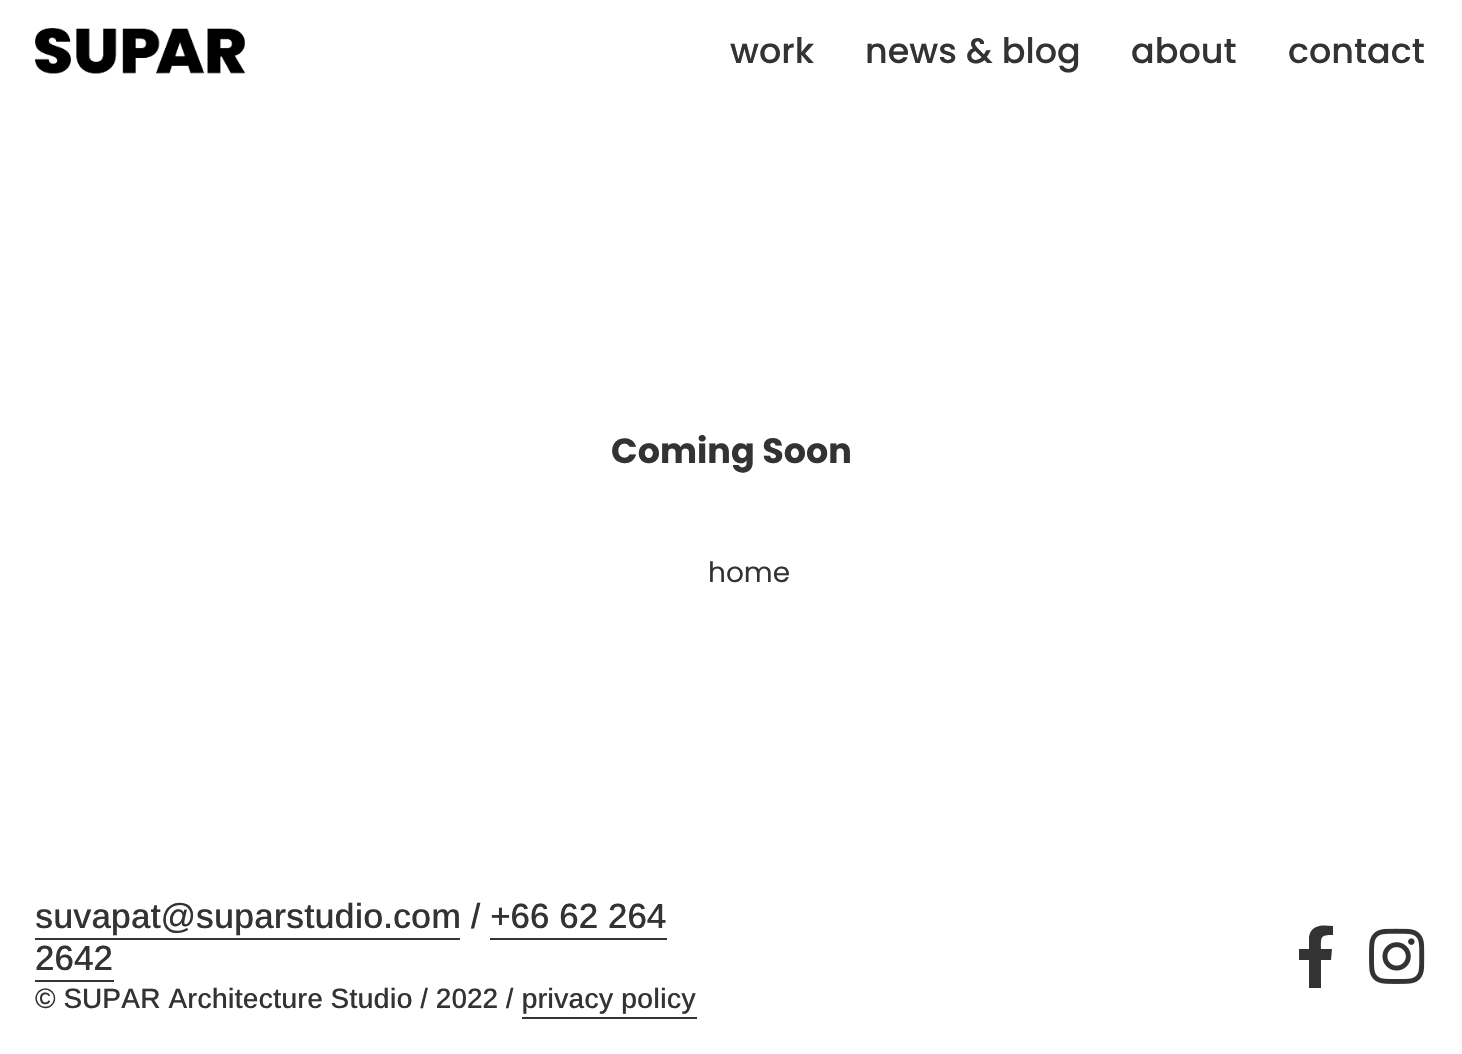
#include "include/core/SkBlurTypes.h"
#include "include/core/SkCanvas.h"
#include "include/core/SkData.h"
#include "include/core/SkFont.h"
#include "include/core/SkFontMgr.h"
#include "include/core/SkImage.h"
#include "include/core/SkMaskFilter.h"
#include "include/core/SkPaint.h"
#include "include/core/SkPathBuilder.h"
#include "include/core/SkTextBlob.h"
#include "include/effects/SkDashPathEffect.h"
#include "include/effects/SkGradientShader.h"
#include "include/utils/SkParsePath.h"

extern sk_sp<SkFontMgr> fontMgr;

static SkFont font(const char* family, int weight, float size, bool italic = false) {
    SkFontStyle style(weight, SkFontStyle::kNormal_Width,
        italic ? SkFontStyle::kItalic_Slant : SkFontStyle::kUpright_Slant);
    SkFont result(fontMgr->matchFamilyStyle(family, style), size);
    result.setSubpixel(true);
    return result;
}

static void drawLabel(SkCanvas* canvas, const char* s, float x, float y, const SkFont& font, SkColor color) {
    SkPaint ink(SkColor4f::FromColor(color));
    ink.setAntiAlias(true);
    canvas->drawString(s, x, y, font, ink);
}

static void fillRect(SkCanvas* canvas, float x, float y, float w, float h, SkColor color) {
    SkPaint ink(SkColor4f::FromColor(color));
    ink.setAntiAlias(true);
    canvas->drawRect(SkRect::MakeXYWH(x, y, w, h), ink);
}

static void drawPhoto(SkCanvas* canvas, const char* path, float x, float y, float w, float h) {
    auto image = SkImages::DeferredFromEncodedData(SkData::MakeFromFileName(path));
    canvas->drawImageRect(image, SkRect::MakeXYWH(x, y, w, h), SkSamplingOptions());
}

static SkPath parsePath(const char* data, bool evenOdd = false) {
    SkPath result = *SkParsePath::FromSVGString(data);
    if (evenOdd) result.setFillType(SkPathFillType::kEvenOdd);
    return result;
}

void draw(SkCanvas* canvas) {
    SkPaint paint;
    paint.setAntiAlias(true);
    canvas->clear(0xFFFFFFFF);
    drawPhoto(canvas, "assets/img1.png", 35, 28, 210, 46);
    SkFont font1 = font("Poppins", 500, 35);
    drawLabel(canvas, "work", 730, 63, font1, 0xFF333333);
    drawLabel(canvas, "news & blog", 865, 63, font1, 0xFF333333);
    drawLabel(canvas, "about", 1131, 63, font1, 0xFF333333);
    drawLabel(canvas, "contact", 1288, 63, font1, 0xFF333333);
    SkFont font2 = font("Poppins", 700, 35);
    drawLabel(canvas, "Coming Soon", 611, 463, font2, 0xFF333333);
    SkFont font3 = font("Poppins", 400, 28);
    drawLabel(canvas, "home", 708, 582, font3, 0xFF333333);
    SkFont font4 = font("Arimo", 500, 35);
    drawLabel(canvas, "suvapat@suparstudio.com / +66 62 264", 35, 928, font4, 0xFF333333);
    fillRect(canvas, 35, 938, 425, 2, 0xFF333333);
    drawLabel(canvas, "2642", 35, 970, font4, 0xFF333333);
    fillRect(canvas, 490, 938, 177, 2, 0xFF333333);
    fillRect(canvas, 35, 980, 79, 2, 0xFF333333);
    SkFont font5 = font("Arimo", 500, 28);
    drawLabel(canvas, "© SUPAR Architecture Studio / 2022 / privacy policy", 35, 1008, font5, 0xFF333333);
    fillRect(canvas, 522, 1017, 175, 2, 0xFF333333);
    paint.setColor(0xFF333333);
    canvas->drawPath(parsePath("M1331 960H1321V988H1309V960H1299V949H1309V937C1311 924 1323 925 1333 926V935C1320 935 1321 937 1321 949H1332Z"), paint);
    drawPhoto(canvas, "assets/img2.png", 1369, 928, 56, 56);
}
